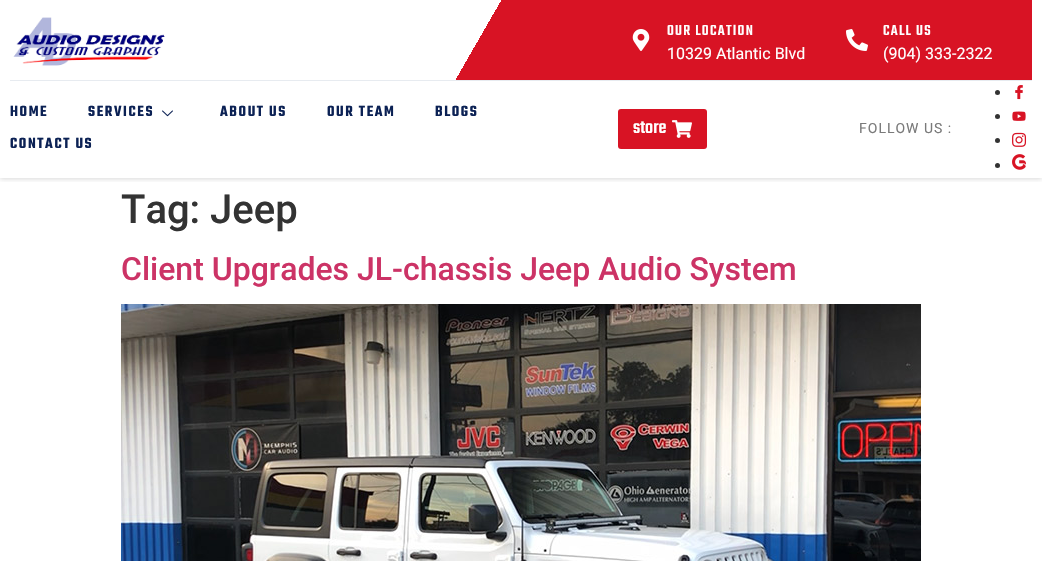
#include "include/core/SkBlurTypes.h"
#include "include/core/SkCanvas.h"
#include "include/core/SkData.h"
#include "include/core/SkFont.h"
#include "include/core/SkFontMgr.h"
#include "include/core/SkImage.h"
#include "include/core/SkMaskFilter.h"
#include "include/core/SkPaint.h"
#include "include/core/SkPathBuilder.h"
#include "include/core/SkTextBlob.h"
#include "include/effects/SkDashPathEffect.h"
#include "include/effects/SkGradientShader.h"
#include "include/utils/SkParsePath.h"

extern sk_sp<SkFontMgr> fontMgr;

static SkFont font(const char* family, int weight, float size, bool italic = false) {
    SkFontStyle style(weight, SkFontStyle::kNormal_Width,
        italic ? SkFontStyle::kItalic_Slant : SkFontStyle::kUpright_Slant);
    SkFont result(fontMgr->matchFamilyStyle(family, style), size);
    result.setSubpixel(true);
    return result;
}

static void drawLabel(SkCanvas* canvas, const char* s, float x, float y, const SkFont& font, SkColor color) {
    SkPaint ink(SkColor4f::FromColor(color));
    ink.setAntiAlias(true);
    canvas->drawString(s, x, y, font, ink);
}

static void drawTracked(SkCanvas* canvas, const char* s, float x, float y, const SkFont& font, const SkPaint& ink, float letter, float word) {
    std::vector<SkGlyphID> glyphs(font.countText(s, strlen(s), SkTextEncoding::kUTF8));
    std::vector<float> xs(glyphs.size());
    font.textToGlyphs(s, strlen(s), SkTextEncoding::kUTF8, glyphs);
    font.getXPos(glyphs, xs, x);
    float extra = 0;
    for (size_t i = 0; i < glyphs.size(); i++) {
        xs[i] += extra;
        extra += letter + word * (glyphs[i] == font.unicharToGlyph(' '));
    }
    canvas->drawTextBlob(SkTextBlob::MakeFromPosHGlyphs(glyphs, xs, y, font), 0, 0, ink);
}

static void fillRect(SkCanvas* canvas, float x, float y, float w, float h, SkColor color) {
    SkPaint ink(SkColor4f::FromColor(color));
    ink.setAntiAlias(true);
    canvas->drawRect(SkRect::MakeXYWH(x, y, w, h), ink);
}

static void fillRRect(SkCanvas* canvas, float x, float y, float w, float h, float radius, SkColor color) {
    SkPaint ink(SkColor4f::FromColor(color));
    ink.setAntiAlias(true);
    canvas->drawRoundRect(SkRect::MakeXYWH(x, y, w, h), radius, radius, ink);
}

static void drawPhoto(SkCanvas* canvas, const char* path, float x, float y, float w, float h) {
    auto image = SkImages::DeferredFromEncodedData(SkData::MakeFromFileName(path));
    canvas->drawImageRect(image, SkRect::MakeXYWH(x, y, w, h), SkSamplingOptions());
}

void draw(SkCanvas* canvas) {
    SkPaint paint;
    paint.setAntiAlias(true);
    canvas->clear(0xFFFFFFFF);
    canvas->save();
    canvas->clipRect(SkRect::MakeXYWH(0, 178, 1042, 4));
    paint.setColor(0x26000000);
    paint.setMaskFilter(SkMaskFilter::MakeBlur(kNormal_SkBlurStyle, 2.5f));
    canvas->drawRect(SkRect::MakeXYWH(0, 1, 1042, 178), paint);
    paint.setMaskFilter(nullptr);
    canvas->restore();
    drawPhoto(canvas, "assets/img1.png", 13, 17, 152, 49);
    {
        const SkColor colors[] = {0xFFD81324, 0xFFFFFFFF};
        const float stops[] = {0.7f, 0.7f};
        const SkPoint ends[] = {{952, 218}, {334, -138}};
        paint.setShader(SkGradientShader::MakeLinear(ends, colors, stops, 2, SkTileMode::kClamp));
        paint.setAlpha(255);
    }
    canvas->drawRect(SkRect::MakeXYWH(456, 0, 576, 80), paint);
    drawPhoto(canvas, "assets/img2.png", 632, 29, 18, 22);
    SkFont font1 = font("Teko", 500, 16);
    paint.setShader(nullptr);
    paint.setColor(0xFFFFFFFF);
    drawTracked(canvas, "OUR LOCATION", 667, 35, font1, paint, 1.25f, 0);
    SkFont font2 = font("Heebo", 400, 16);
    drawLabel(canvas, "10329 Atlantic Blvd", 667, 59, font2, 0xFFFFFFFF);
    drawPhoto(canvas, "assets/img3.png", 846, 29, 22, 22);
    drawTracked(canvas, "CALL US", 883, 35, font1, paint, 1.25f, 0);
    drawLabel(canvas, "(904) 333-2322", 883, 59, font2, 0xFFFFFFFF);
    fillRect(canvas, 10, 80, 1022, 1, 0xFFE7EBF0);
    SkFont font3 = font("Teko", 600, 16);
    paint.setColor(0xFF0B2154);
    drawTracked(canvas, "HOME", 10, 116, font3, paint, 1.6f, 0);
    drawTracked(canvas, "SERVICES", 88, 116, font3, paint, 1.6f, 0);
    drawPhoto(canvas, "assets/img4.png", 162, 110, 11, 7);
    drawTracked(canvas, "ABOUT US", 220, 116, font3, paint, 1.6f, 0);
    drawTracked(canvas, "OUR TEAM", 327, 116, font3, paint, 1.6f, 0);
    drawTracked(canvas, "BLOGS", 435, 116, font3, paint, 1.6f, 0);
    drawTracked(canvas, "CONTACT US", 10, 148, font3, paint, 1.6f, 0);
    fillRRect(canvas, 618, 109, 89, 40, 3, 0xFFD81324);
    SkFont font4 = font("Teko", 500, 20);
    drawLabel(canvas, "store", 633, 133, font4, 0xFFFFFFFF);
    drawPhoto(canvas, "assets/img5.png", 672, 120, 20, 18);
    SkFont font5 = font("Heebo", 400, 14);
    paint.setColor(0xFF7A7A7A);
    drawTracked(canvas, "FOLLOW US :", 859, 133, font5, paint, 1, 0);
    paint.setColor(0xFF333333);
    canvas->drawCircle(997.5f, 92.5f, 2.5f, paint);
    drawPhoto(canvas, "assets/img6.png", 1015, 85, 8, 15);
    canvas->drawCircle(997.5f, 116.5f, 2.5f, paint);
    drawPhoto(canvas, "assets/img7.png", 1012, 111, 14, 10);
    canvas->drawCircle(997.5f, 140.5f, 2.5f, paint);
    drawPhoto(canvas, "assets/img8.png", 1012, 132, 15, 15);
    canvas->drawCircle(997.5f, 165.5f, 2.5f, paint);
    drawPhoto(canvas, "assets/img9.png", 1012, 154, 14, 16);
    SkFont font6 = font("Roboto", 500, 40);
    drawLabel(canvas, "Tag: Jeep", 121, 223, font6, 0xFF333333);
    SkFont font7 = font("Roboto", 500, 32);
    drawLabel(canvas, "Client Upgrades JL-chassis Jeep Audio System", 121, 280, font7, 0xFFCC3366);
    drawPhoto(canvas, "assets/img10.png", 121, 304, 800, 257);
}
